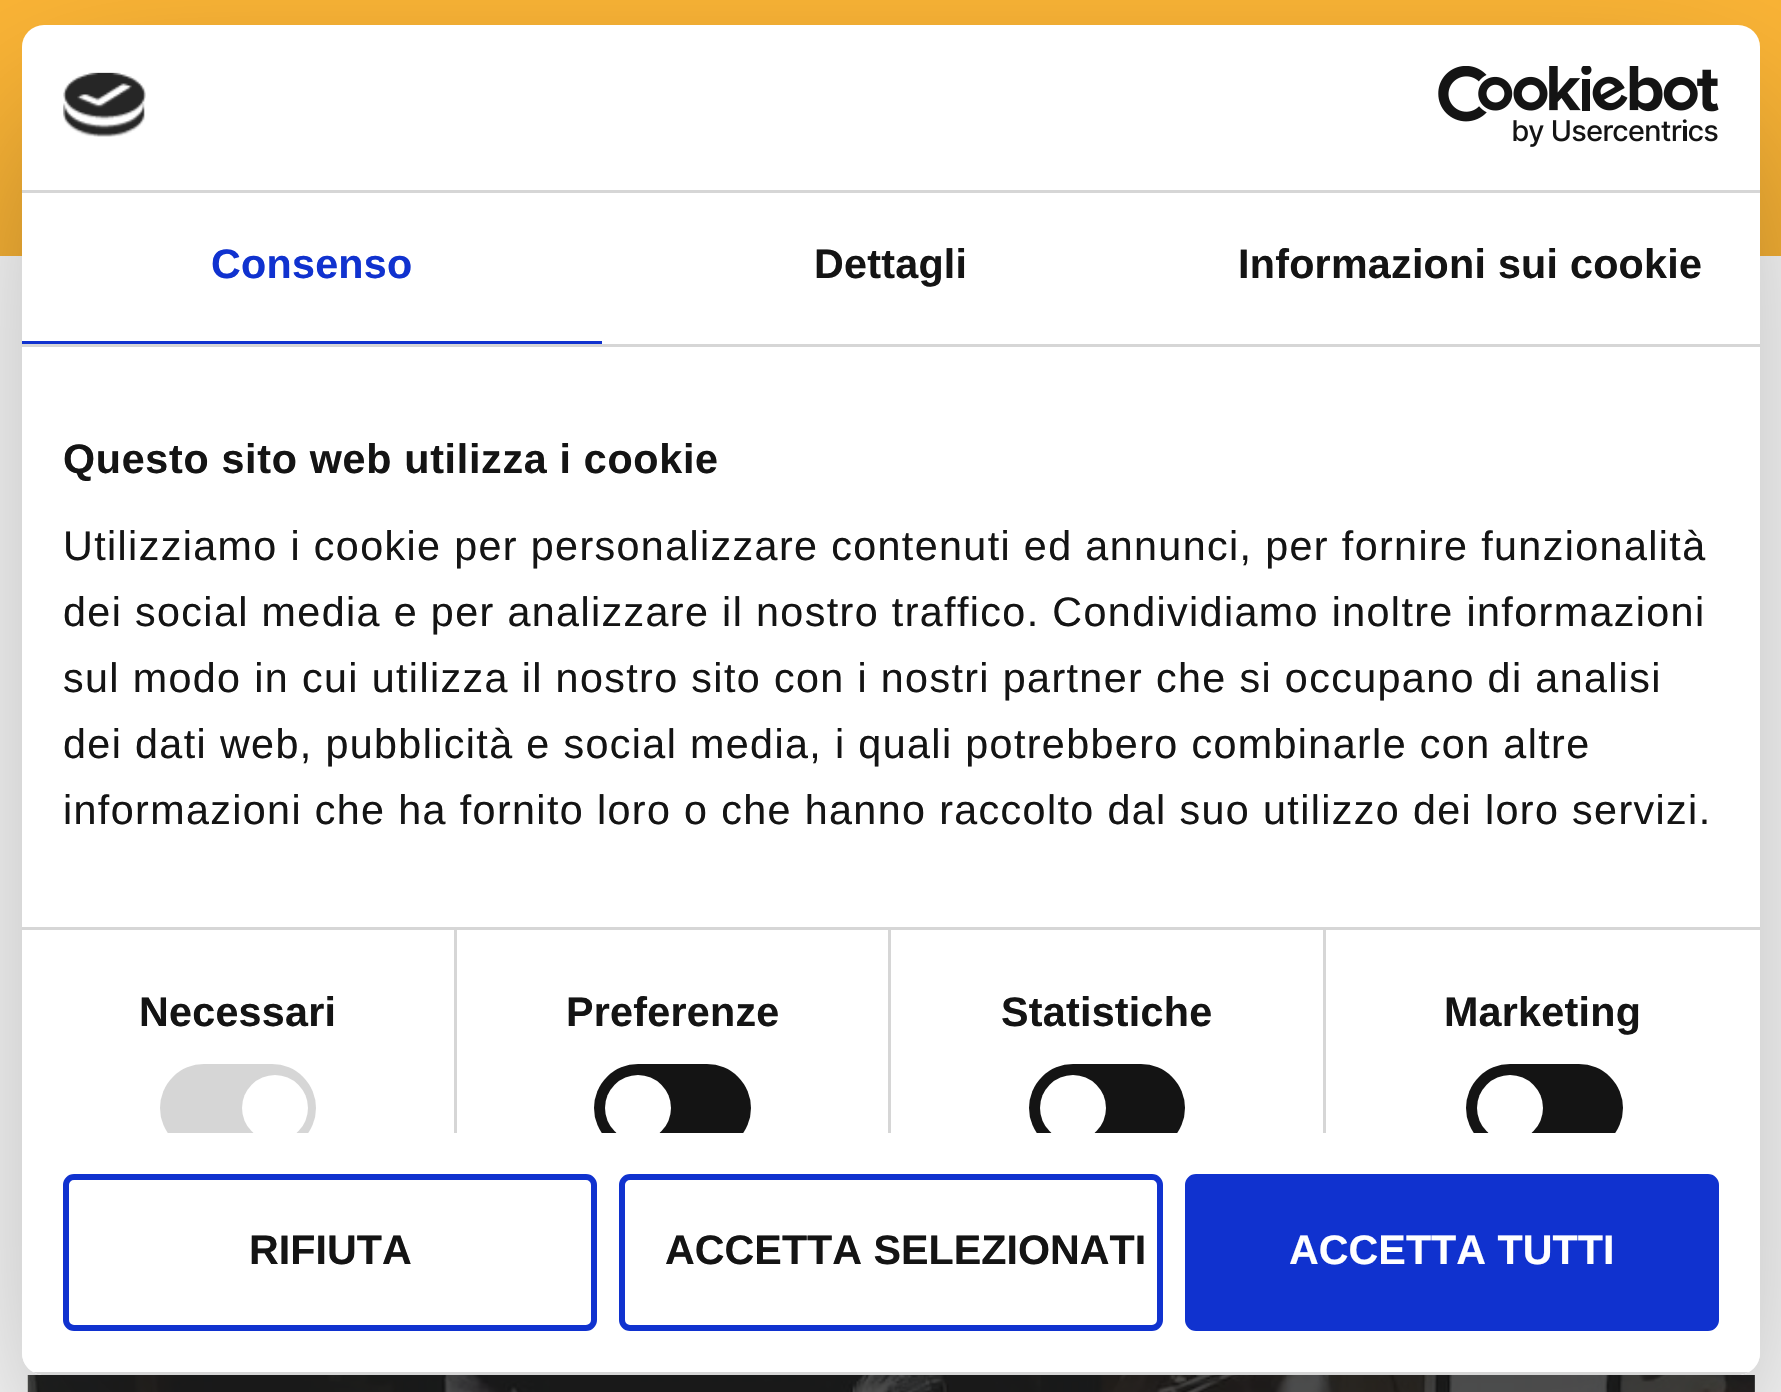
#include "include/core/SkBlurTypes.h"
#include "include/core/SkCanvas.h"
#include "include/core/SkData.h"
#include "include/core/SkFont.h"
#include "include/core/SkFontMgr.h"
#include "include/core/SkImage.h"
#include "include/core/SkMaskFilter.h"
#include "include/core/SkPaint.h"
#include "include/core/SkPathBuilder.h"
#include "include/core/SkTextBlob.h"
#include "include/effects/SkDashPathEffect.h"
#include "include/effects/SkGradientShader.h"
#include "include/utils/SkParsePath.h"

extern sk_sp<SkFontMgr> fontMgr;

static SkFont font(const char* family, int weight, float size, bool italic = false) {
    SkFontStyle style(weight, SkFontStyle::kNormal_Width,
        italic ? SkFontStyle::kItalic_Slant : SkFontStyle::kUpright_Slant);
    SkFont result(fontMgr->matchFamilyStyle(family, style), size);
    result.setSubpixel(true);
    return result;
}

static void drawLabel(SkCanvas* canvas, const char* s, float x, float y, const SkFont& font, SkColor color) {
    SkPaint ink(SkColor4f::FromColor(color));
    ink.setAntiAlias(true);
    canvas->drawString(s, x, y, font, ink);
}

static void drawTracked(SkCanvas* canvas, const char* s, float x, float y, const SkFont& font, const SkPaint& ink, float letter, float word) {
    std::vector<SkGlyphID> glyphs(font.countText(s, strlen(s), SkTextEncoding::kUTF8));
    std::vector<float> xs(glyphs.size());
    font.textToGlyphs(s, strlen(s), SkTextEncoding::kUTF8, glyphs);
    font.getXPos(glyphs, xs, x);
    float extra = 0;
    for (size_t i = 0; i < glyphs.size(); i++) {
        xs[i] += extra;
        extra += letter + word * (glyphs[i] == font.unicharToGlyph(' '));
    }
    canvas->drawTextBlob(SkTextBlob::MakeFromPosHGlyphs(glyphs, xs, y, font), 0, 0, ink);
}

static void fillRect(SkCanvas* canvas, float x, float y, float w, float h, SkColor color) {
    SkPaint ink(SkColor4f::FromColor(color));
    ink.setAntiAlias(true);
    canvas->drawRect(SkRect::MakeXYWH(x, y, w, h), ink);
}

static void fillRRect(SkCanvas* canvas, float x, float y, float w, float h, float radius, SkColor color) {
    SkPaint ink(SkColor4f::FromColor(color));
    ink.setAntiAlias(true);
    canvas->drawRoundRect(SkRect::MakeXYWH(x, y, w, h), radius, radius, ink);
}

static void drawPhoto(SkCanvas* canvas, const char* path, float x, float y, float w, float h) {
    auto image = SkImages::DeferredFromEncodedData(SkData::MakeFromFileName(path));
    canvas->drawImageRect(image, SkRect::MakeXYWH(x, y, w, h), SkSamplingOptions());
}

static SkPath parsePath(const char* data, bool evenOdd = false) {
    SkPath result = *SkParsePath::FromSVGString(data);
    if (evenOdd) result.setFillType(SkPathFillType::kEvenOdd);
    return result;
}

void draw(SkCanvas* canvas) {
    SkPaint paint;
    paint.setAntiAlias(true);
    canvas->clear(0xFFFFFFFF);
    fillRect(canvas, 1754, 1375, 1, 17, 0xFF646464);
    fillRect(canvas, 0, 0, 1781, 256, 0xFFFCB536);
    drawPhoto(canvas, "assets/img3.png", 27, 1375, 1728, 17);
    canvas->save();
    canvas->clipPath(parsePath("M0 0H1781V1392H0ZM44 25H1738C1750 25 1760 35 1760 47V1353C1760 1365 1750 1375 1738 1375H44C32 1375 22 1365 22 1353V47C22 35 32 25 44 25Z", true), true);
    paint.setColor(0x4D000000);
    paint.setMaskFilter(SkMaskFilter::MakeBlur(kNormal_SkBlurStyle, 93.5f));
    canvas->drawRoundRect(SkRect::MakeXYWH(22, 113, 1738, 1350), 22, 22, paint);
    paint.setMaskFilter(nullptr);
    canvas->restore();
    fillRRect(canvas, 22, 25, 1738, 1350, 22, 0xFFFFFFFF);
    fillRect(canvas, 22, 190, 1738, 3, 0xFFD6D6D6);
    drawPhoto(canvas, "assets/img1.png", 63, 72, 83, 65);
    drawPhoto(canvas, "assets/img2.png", 1438, 66, 281, 81);
    fillRect(canvas, 22, 344, 1738, 3, 0xFFD6D6D6);
    fillRect(canvas, 22, 341, 580, 3, 0xFF1032CF);
    SkFont font1 = font("Liberation Sans", 700, 41.25f);
    paint.setColor(0xFF1032CF);
    drawTracked(canvas, "Consenso", 211, 278, font1, paint, 0.25f, 0);
    paint.setColor(0xFF141414);
    drawTracked(canvas, "Dettagli", 814, 278, font1, paint, 0.25f, 0);
    drawTracked(canvas, "Informazioni sui cookie", 1238, 278, font1, paint, 0.25f, 0);
    fillRect(canvas, 22, 927, 1738, 3, 0xFFD6D6D6);
    drawTracked(canvas, "Questo sito web utilizza i cookie", 63, 473, font1, paint, 0.7f, 0);
    SkFont font2 = font("Liberation Sans", 400, 41.25f);
    drawTracked(canvas, "Utilizziamo i cookie per personalizzare contenuti ed annunci, per fornire funzionalità", 63, 560, font2, paint, 1.38f, 0);
    drawTracked(canvas, "dei social media e per analizzare il nostro traffico. Condividiamo inoltre informazioni", 63, 626, font2, paint, 1.38f, 0);
    drawTracked(canvas, "sul modo in cui utilizza il nostro sito con i nostri partner che si occupano di analisi", 63, 692, font2, paint, 1.38f, 0);
    drawTracked(canvas, "dei dati web, pubblicità e social media, i quali potrebbero combinarle con altre", 63, 758, font2, paint, 1.38f, 0);
    drawTracked(canvas, "informazioni che ha fornito loro o che hanno raccolto dal suo utilizzo dei loro servizi.", 63, 824, font2, paint, 1.38f, 0);
    fillRect(canvas, 454, 930, 3, 203, 0xFFD6D6D6);
    drawTracked(canvas, "Necessari", 139, 1026, font1, paint, 0.25f, 0);
    canvas->save();
    canvas->clipRect(SkRect::MakeXYWH(22, 347, 1738, 786));
    fillRRect(canvas, 160, 1064, 156, 88, 44, 0xFFD6D6D6);
    paint.setColor(0xFFFFFFFF);
    canvas->drawCircle(275, 1108, 33, paint);
    canvas->restore();
    fillRect(canvas, 888, 930, 3, 203, 0xFFD6D6D6);
    paint.setColor(0xFF141414);
    drawTracked(canvas, "Preferenze", 566, 1026, font1, paint, 0.25f, 0);
    canvas->save();
    canvas->clipRect(SkRect::MakeXYWH(22, 347, 1738, 786));
    fillRRect(canvas, 594, 1064, 157, 88, 44, 0xFF141414);
    paint.setColor(0xFFFFFFFF);
    canvas->drawCircle(638, 1108, 33, paint);
    canvas->restore();
    fillRect(canvas, 1323, 930, 3, 203, 0xFFD6D6D6);
    paint.setColor(0xFF141414);
    drawTracked(canvas, "Statistiche", 1001, 1026, font1, paint, 0.25f, 0);
    canvas->save();
    canvas->clipRect(SkRect::MakeXYWH(22, 347, 1738, 786));
    fillRRect(canvas, 1029, 1064, 156, 88, 44, 0xFF141414);
    paint.setColor(0xFFFFFFFF);
    canvas->drawCircle(1073, 1108, 33, paint);
    canvas->restore();
    paint.setColor(0xFF141414);
    drawTracked(canvas, "Marketing", 1444, 1026, font1, paint, 0.25f, 0);
    canvas->save();
    canvas->clipRect(SkRect::MakeXYWH(22, 347, 1738, 786));
    fillRRect(canvas, 1466, 1064, 157, 88, 44, 0xFF141414);
    paint.setColor(0xFFFFFFFF);
    canvas->drawCircle(1510, 1108, 33, paint);
    canvas->restore();
    canvas->save();
    canvas->clipPath(parsePath("M44 25H1738C1750 25 1760 35 1760 47V1353C1760 1365 1750 1375 1738 1375H44C32 1375 22 1365 22 1353V47C22 35 32 25 44 25Z"), true);
    fillRect(canvas, 33, 1372, 1716, 3, 0xFFD6D6D6);
    canvas->restore();
    paint.setStroke(true);
    paint.setStrokeWidth(6);
    paint.setColor(0xFF1032CF);
    canvas->drawRoundRect(SkRect::MakeXYWH(66, 1177, 528, 151), 8, 8, paint);
    drawLabel(canvas, "RIFIUTA", 249, 1264, font1, 0xFF141414);
    canvas->drawRoundRect(SkRect::MakeXYWH(622, 1177, 538, 151), 8, 8, paint);
    drawLabel(canvas, "ACCETTA SELEZIONATI", 665, 1264, font1, 0xFF141414);
    paint.setStroke(false);
    canvas->drawRoundRect(SkRect::MakeXYWH(1188, 1177, 528, 151), 8, 8, paint);
    paint.setStroke(true);
    canvas->drawRoundRect(SkRect::MakeXYWH(1188, 1177, 528, 151), 8, 8, paint);
    drawLabel(canvas, "ACCETTA TUTTI", 1289, 1264, font1, 0xFFFFFFFF);
}
